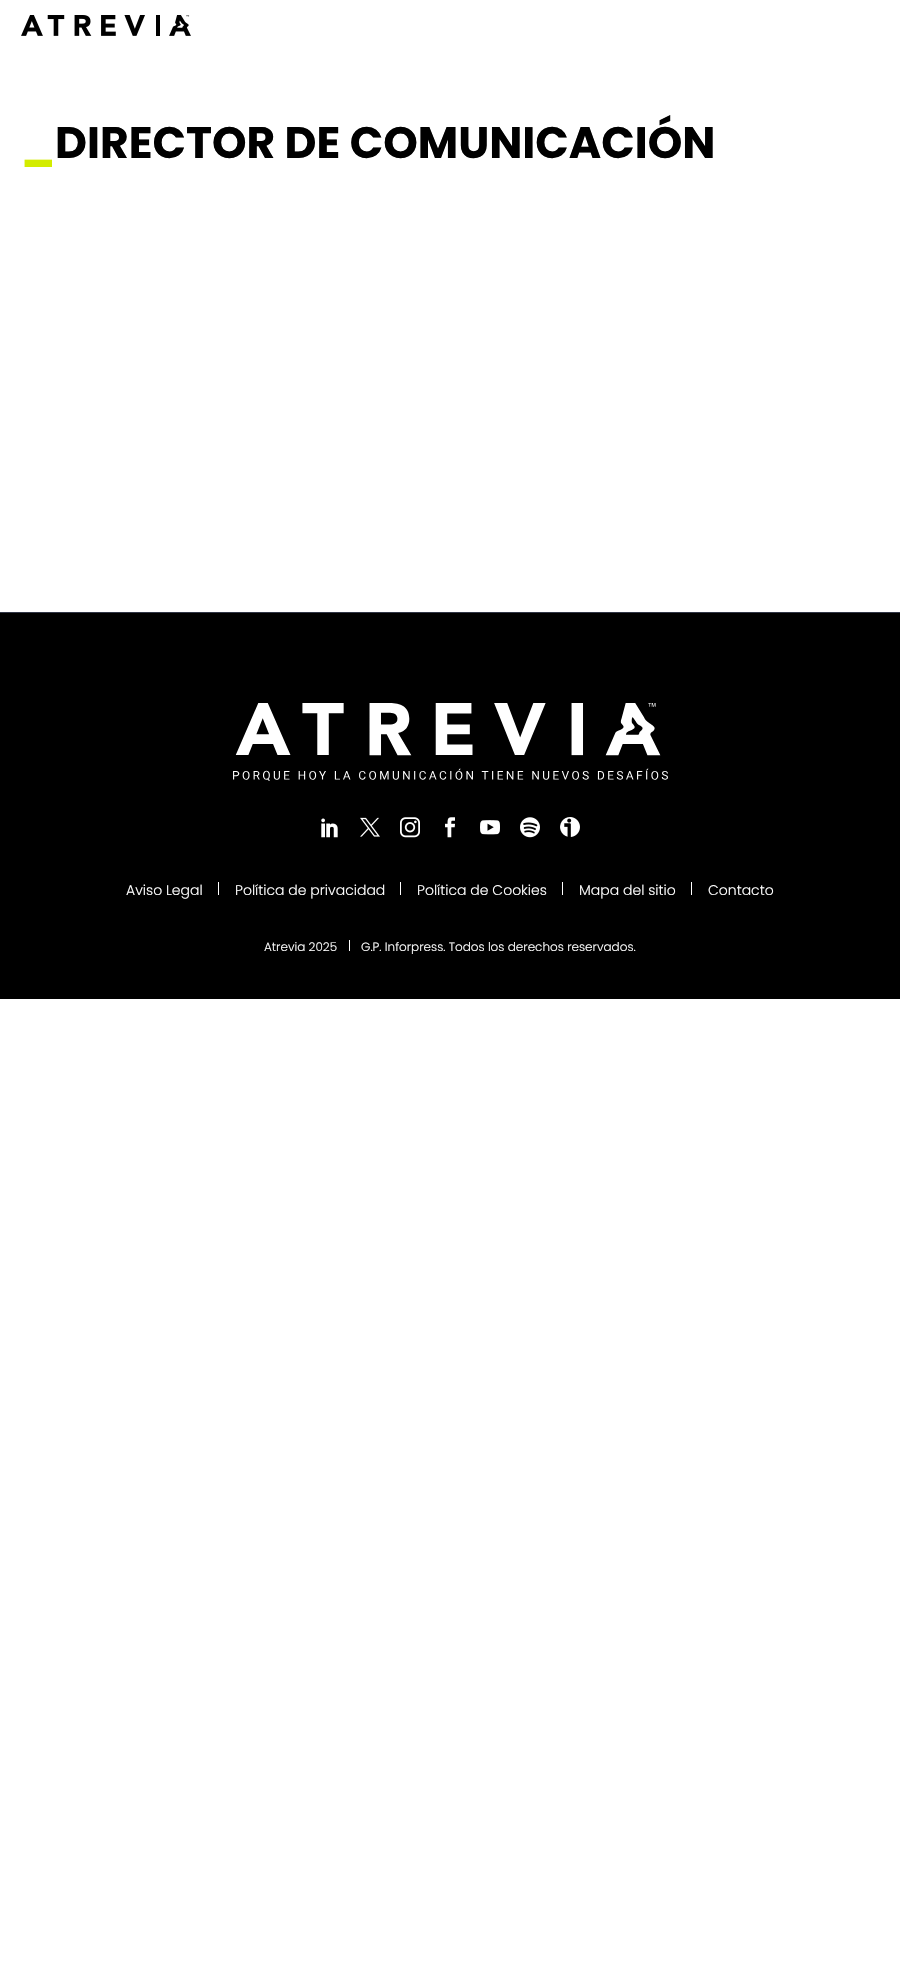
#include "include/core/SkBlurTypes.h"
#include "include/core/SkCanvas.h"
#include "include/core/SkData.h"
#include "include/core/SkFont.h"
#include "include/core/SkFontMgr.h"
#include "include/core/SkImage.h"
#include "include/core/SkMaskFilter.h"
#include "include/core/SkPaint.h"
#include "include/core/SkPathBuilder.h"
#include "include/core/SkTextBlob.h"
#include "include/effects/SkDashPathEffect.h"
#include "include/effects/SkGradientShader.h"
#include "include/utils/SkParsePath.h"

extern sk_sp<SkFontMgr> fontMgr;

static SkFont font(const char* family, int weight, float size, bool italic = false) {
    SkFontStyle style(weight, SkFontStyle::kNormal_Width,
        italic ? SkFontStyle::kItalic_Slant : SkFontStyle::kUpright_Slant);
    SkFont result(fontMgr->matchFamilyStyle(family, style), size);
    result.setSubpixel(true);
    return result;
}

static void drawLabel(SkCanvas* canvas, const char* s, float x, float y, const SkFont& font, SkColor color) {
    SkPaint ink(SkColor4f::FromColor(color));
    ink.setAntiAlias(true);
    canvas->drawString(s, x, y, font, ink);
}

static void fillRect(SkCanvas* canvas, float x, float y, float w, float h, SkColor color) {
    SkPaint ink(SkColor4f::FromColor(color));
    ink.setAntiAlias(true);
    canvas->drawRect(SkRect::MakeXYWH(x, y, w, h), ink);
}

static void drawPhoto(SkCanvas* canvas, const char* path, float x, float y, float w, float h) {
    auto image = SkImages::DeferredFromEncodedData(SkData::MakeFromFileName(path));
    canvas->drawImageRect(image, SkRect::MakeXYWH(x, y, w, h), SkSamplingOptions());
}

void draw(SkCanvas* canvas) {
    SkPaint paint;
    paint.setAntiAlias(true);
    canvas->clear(0xFFFFFFFF);
    drawPhoto(canvas, "assets/img1.png", 21, 15, 170, 21);
    SkFont font1 = font("Poppins", 700, 44);
    drawLabel(canvas, "DIRECTOR DE COMUNICACIÓN", 55, 158, font1, 0xFF000000);
    drawLabel(canvas, "_", 21, 158, font1, 0xFFD3EC00);
    fillRect(canvas, 0, 613, 900, 386, 0xFF000000);
    fillRect(canvas, 0, 612, 900, 1, 0xFF313646);
    drawPhoto(canvas, "assets/img2.png", 233, 703, 435, 78);
    drawPhoto(canvas, "assets/img3.png", 321, 818, 17, 20);
    drawPhoto(canvas, "assets/img4.png", 360, 817, 20, 20);
    drawPhoto(canvas, "assets/img5.png", 400, 817, 20, 21);
    drawPhoto(canvas, "assets/img6.png", 445, 817, 10, 21);
    drawPhoto(canvas, "assets/img7.png", 480, 820, 20, 15);
    drawPhoto(canvas, "assets/img8.png", 520, 817, 20, 21);
    drawPhoto(canvas, "assets/img9.png", 560, 817, 20, 20);
    SkFont font2 = font("Poppins", 300, 14);
    drawLabel(canvas, "Aviso Legal", 126, 895, font2, 0xFFFFFFFF);
    fillRect(canvas, 218, 882, 1, 13, 0xFFFFFFFF);
    drawLabel(canvas, "Política de privacidad", 235, 895, font2, 0xFFFFFFFF);
    fillRect(canvas, 400, 882, 1, 13, 0xFFFFFFFF);
    drawLabel(canvas, "Política de Cookies", 417, 895, font2, 0xFFFFFFFF);
    fillRect(canvas, 562, 882, 1, 13, 0xFFFFFFFF);
    drawLabel(canvas, "Mapa del sitio", 579, 895, font2, 0xFFFFFFFF);
    fillRect(canvas, 691, 882, 1, 13, 0xFFFFFFFF);
    drawLabel(canvas, "Contacto", 708, 895, font2, 0xFFFFFFFF);
    SkFont font3 = font("Poppins", 300, 12);
    drawLabel(canvas, "Atrevia 2025", 264, 951, font3, 0xFFFFFFFF);
    fillRect(canvas, 349, 940, 1, 11, 0xFFFFFFFF);
    drawLabel(canvas, "G.P. Inforpress. Todos los derechos reservados.", 361, 951, font3, 0xFFFFFFFF);
}
